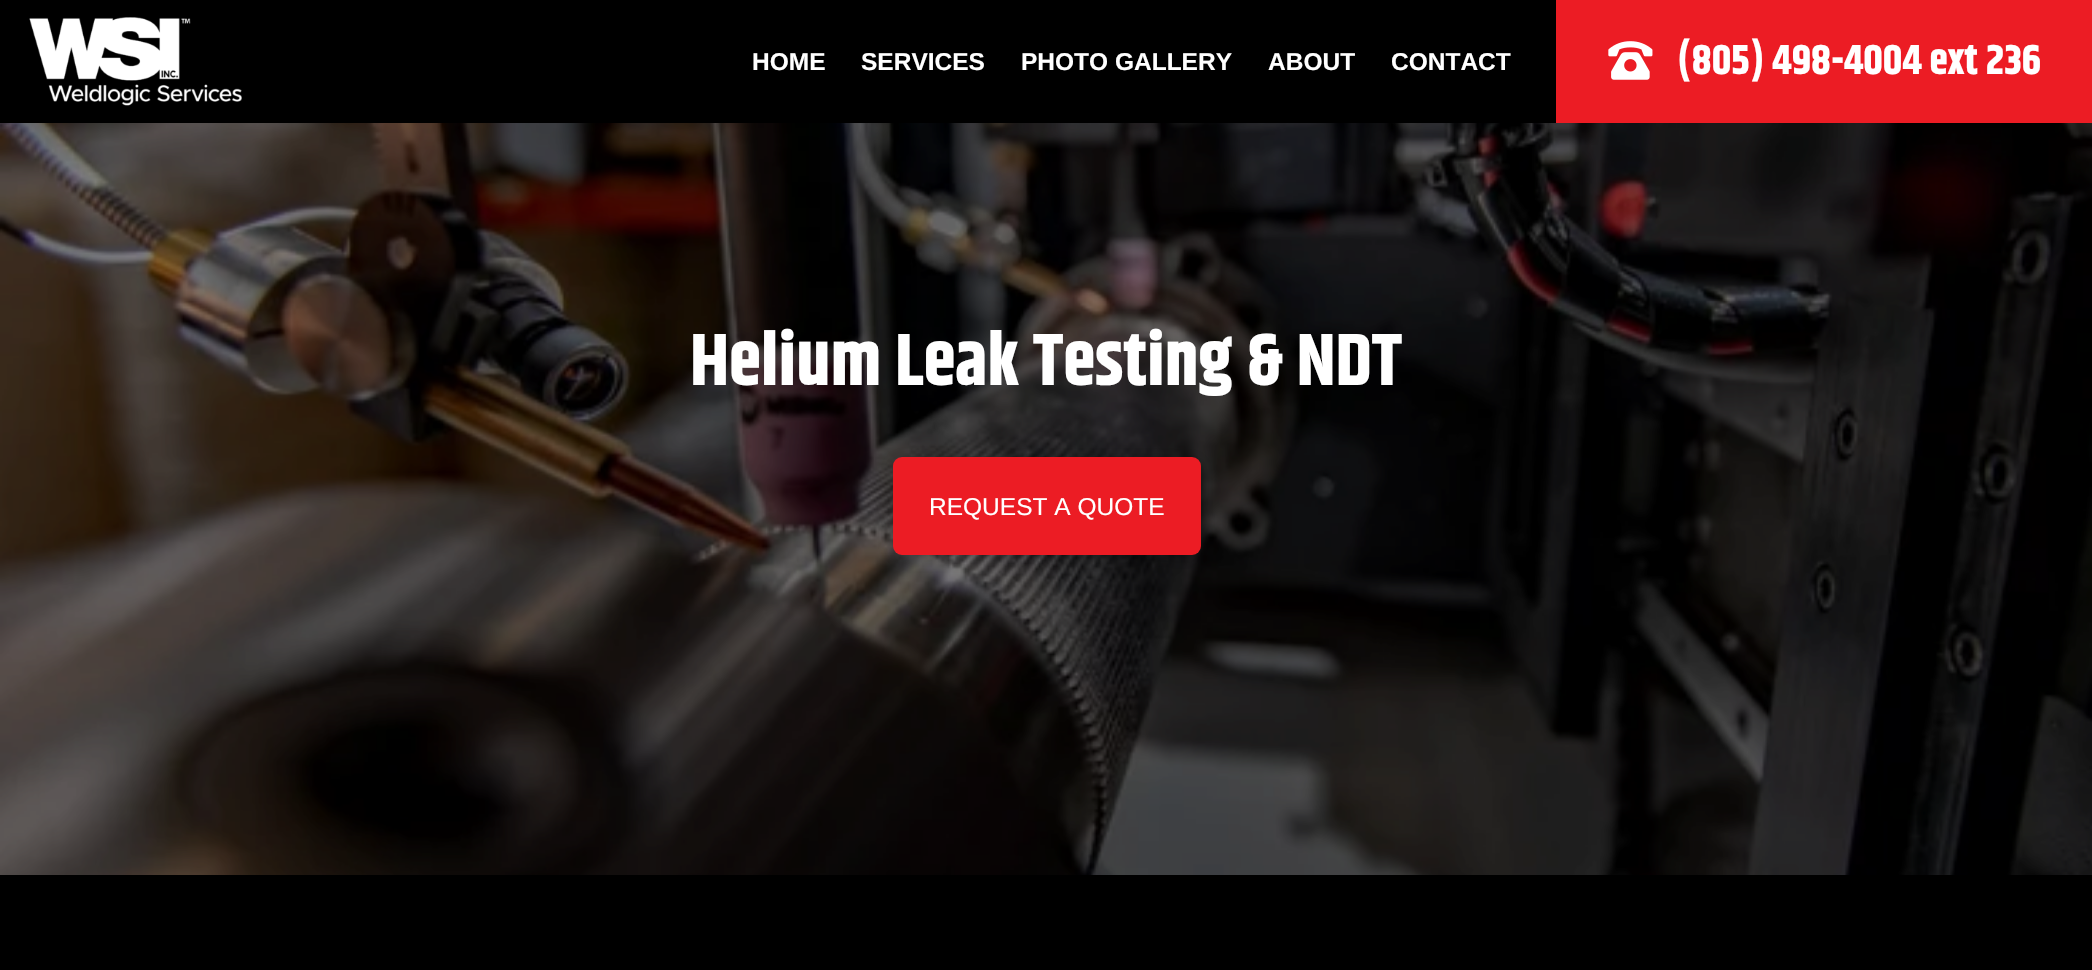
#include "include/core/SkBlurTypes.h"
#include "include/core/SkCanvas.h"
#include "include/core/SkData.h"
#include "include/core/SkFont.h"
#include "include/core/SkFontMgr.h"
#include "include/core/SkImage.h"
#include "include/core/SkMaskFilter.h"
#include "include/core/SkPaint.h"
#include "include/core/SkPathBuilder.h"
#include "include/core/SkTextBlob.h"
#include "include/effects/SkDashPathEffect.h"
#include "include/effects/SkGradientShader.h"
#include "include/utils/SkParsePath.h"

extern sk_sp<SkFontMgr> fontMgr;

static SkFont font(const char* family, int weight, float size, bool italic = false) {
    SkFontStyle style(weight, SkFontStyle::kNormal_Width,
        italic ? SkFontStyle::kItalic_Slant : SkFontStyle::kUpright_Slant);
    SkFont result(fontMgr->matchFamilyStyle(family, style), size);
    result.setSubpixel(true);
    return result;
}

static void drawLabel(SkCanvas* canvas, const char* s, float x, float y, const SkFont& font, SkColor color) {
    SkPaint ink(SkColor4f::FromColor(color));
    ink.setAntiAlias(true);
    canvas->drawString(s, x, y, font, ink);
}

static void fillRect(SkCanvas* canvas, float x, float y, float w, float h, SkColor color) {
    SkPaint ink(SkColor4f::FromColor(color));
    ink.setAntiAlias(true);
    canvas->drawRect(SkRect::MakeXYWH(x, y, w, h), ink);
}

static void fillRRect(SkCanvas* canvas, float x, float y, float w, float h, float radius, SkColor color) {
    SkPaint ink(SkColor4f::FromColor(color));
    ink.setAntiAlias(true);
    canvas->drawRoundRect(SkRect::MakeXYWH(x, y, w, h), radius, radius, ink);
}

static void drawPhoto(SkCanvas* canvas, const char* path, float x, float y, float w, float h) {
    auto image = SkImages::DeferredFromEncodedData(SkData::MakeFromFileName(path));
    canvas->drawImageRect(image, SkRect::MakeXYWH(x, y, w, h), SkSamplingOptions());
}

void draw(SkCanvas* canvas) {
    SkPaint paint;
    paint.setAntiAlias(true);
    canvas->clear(0xFFFFFFFF);
    fillRect(canvas, 0, 0, 1556, 123, 0xFF000000);
    drawPhoto(canvas, "assets/img1.png", 29, 17, 213, 89);
    SkFont font1 = font("Liberation Sans", 700, 24.5f);
    drawLabel(canvas, "HOME", 752, 70, font1, 0xFFFFFFFF);
    drawLabel(canvas, "SERVICES", 861, 70, font1, 0xFFFFFFFF);
    drawLabel(canvas, "PHOTO GALLERY", 1021, 70, font1, 0xFFFFFFFF);
    drawLabel(canvas, "ABOUT", 1268, 70, font1, 0xFFFFFFFF);
    drawLabel(canvas, "CONTACT", 1391, 70, font1, 0xFFFFFFFF);
    fillRect(canvas, 1556, 0, 536, 123, 0xFFEC1C24);
    drawPhoto(canvas, "assets/img2.png", 1608, 41, 45, 39);
    SkFont font2 = font("Khand", 700, 41.75f);
    drawLabel(canvas, "(805) 498-4004 ext 236", 1677, 74, font2, 0xFFFFFFFF);
    drawPhoto(canvas, "assets/img3.png", 0, 123, 2092, 752);
    SkFont font3 = font("Khand", 700, 73.5f);
    drawLabel(canvas, "Helium Leak Testing & NDT", 690, 385, font3, 0xFFFFFFFF);
    paint.setColor(0x40000000);
    paint.setMaskFilter(SkMaskFilter::MakeBlur(kNormal_SkBlurStyle, 8));
    canvas->drawRoundRect(SkRect::MakeXYWH(893, 460, 308, 98), 9, 9, paint);
    paint.setMaskFilter(nullptr);
    fillRRect(canvas, 893, 457, 308, 98, 9, 0xFFEC1C24);
    SkFont font4 = font("Liberation Sans", 400, 24.5f);
    drawLabel(canvas, "REQUEST A QUOTE", 929, 515, font4, 0xFFFFFFFF);
    fillRect(canvas, 0, 875, 2092, 95, 0xFF000000);
}
